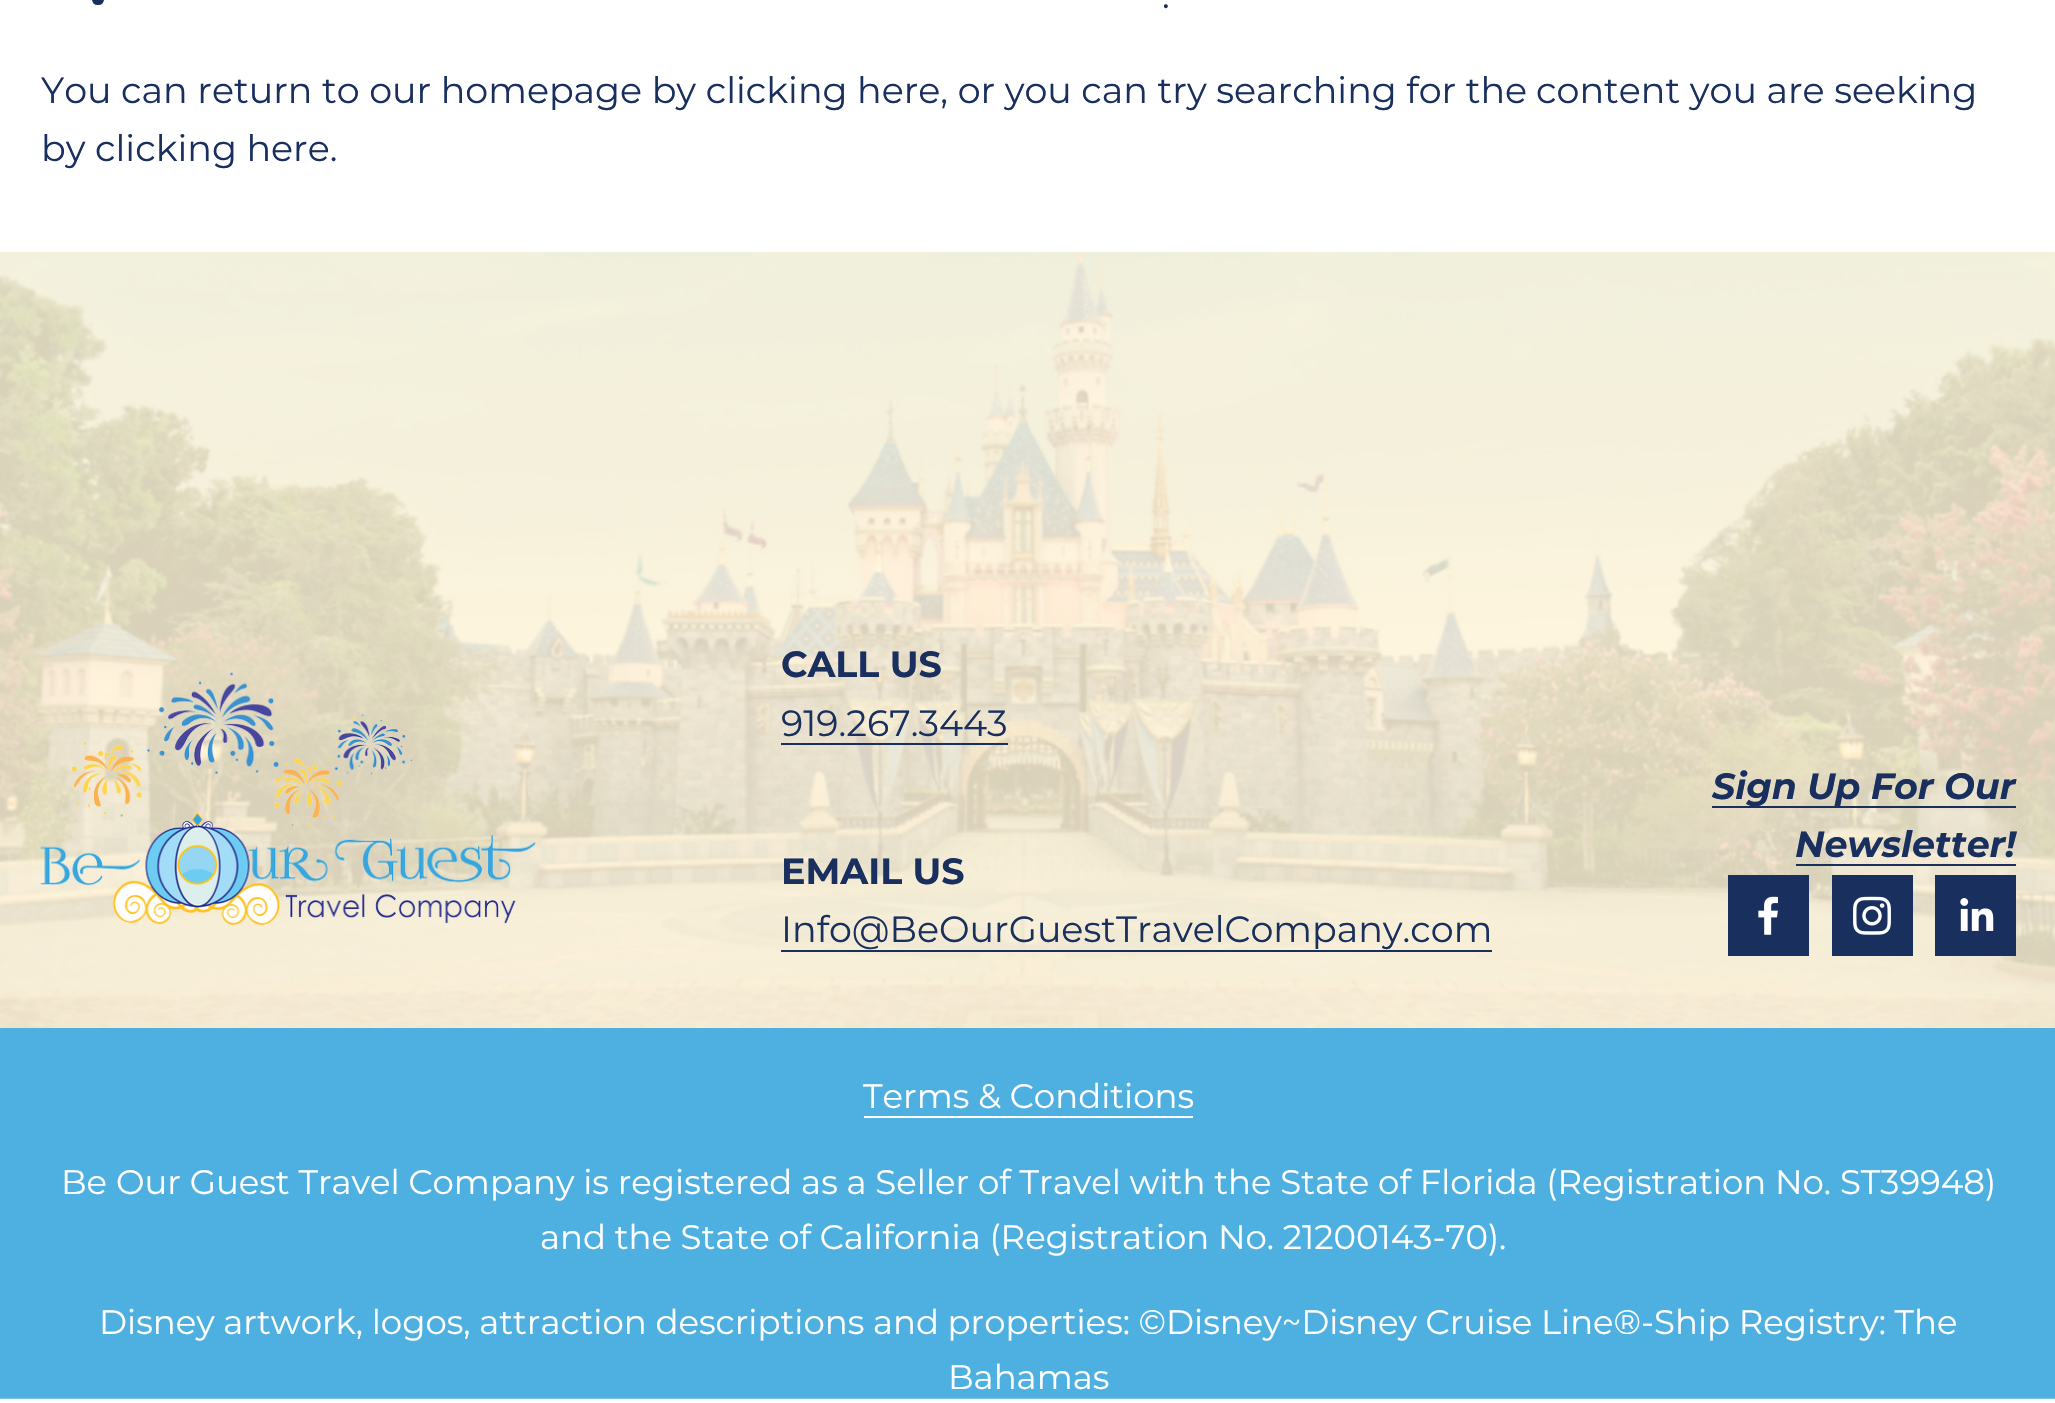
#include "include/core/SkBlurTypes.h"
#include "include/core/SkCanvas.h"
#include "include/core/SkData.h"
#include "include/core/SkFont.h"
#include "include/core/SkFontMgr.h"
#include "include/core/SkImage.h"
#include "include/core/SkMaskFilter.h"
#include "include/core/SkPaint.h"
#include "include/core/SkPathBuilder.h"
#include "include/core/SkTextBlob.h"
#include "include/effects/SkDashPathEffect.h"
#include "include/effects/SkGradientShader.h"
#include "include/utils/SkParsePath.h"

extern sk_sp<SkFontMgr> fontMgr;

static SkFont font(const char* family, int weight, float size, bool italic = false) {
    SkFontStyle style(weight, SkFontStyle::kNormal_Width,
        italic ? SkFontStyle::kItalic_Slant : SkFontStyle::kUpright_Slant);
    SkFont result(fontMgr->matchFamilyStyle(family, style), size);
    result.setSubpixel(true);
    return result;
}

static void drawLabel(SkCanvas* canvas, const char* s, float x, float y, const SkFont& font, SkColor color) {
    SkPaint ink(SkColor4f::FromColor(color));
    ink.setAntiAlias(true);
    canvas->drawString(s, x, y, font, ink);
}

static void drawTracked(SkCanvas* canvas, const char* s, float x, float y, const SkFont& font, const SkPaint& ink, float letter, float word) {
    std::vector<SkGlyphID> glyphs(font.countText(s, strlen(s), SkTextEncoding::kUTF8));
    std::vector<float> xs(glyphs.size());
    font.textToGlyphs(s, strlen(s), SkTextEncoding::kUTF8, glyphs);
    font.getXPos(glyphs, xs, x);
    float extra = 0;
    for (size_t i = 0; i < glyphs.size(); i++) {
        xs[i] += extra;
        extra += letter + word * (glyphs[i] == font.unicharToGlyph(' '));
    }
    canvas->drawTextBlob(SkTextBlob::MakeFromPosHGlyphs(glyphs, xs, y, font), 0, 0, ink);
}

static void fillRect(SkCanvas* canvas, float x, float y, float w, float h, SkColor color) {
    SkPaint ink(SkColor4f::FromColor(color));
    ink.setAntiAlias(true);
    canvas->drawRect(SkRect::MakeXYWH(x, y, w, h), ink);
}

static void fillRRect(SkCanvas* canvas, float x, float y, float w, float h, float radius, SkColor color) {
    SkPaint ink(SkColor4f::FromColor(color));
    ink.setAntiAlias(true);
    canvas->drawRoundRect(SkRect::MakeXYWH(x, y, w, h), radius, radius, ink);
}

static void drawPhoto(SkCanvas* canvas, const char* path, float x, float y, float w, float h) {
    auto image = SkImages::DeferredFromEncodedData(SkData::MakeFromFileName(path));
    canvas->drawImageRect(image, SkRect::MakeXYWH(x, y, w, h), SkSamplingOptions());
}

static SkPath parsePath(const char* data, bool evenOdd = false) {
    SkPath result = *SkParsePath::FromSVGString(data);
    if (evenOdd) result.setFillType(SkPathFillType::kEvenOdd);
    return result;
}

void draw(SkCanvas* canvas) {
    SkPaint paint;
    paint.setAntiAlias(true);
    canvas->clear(0xFFFFFFFF);
    fillRRect(canvas, 92, -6, 12, 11, 6, 0xFF192F5E);
    SkFont font1 = font("Montserrat", 400, 36.45f);
    drawLabel(canvas, ".", 1162, 8, font1, 0xFF192F5E);
    drawLabel(canvas, "You can return to our homepage by clicking here, or you can try searching for the", 41, 103, font1, 0xFF192F5E);
    drawLabel(canvas, "content you are seeking", 1536, 103, font1, 0xFF192F5E);
    drawLabel(canvas, "by clicking here.", 41, 161, font1, 0xFF192F5E);
    drawPhoto(canvas, "assets/img1.png", 0, 252, 2055, 776);
    drawPhoto(canvas, "assets/img2.png", 40, 672, 496, 253);
    SkFont font2 = font("Montserrat", 700, 36.45f);
    drawLabel(canvas, "CALL US", 781, 677, font2, 0xFF192F5E);
    drawLabel(canvas, "919.267.3443", 781, 736, font1, 0xFF192F5E);
    fillRect(canvas, 781, 743, 227, 2, 0xFF192F5E);
    drawLabel(canvas, "EMAIL US", 781, 884, font2, 0xFF192F5E);
    drawLabel(canvas, "Info@BeOurGuestTravelCompany.com", 781, 942, font1, 0xFF192F5E);
    fillRect(canvas, 781, 950, 711, 2, 0xFF192F5E);
    fillRect(canvas, 1712, 806, 304, 2, 0xFF192F5E);
    SkFont font3 = font("Montserrat", 700, 36.45f, true);
    drawLabel(canvas, "Sign Up For Our", 1712, 799, font3, 0xFF192F5E);
    drawLabel(canvas, "Newsletter!", 1795, 857, font3, 0xFF192F5E);
    fillRect(canvas, 1796, 864, 220, 2, 0xFF192F5E);
    fillRect(canvas, 1728, 875, 81, 81, 0xFF192F5E);
    drawPhoto(canvas, "assets/img3.png", 1758, 896, 20, 39);
    fillRect(canvas, 1832, 875, 81, 81, 0xFF192F5E);
    drawPhoto(canvas, "assets/img4.png", 1853, 896, 38, 39);
    fillRect(canvas, 1935, 875, 81, 81, 0xFF192F5E);
    drawPhoto(canvas, "assets/img5.png", 1960, 898, 34, 33);
    fillRect(canvas, 0, 1028, 2055, 371, 0xFF4EB0E1);
    SkFont font4 = font("Montserrat", 400, 33.97f);
    drawLabel(canvas, "Terms & Conditions", 863, 1108, font4, 0xFFFFFFFF);
    fillRect(canvas, 864, 1116, 329, 2, 0xFFFFFFFF);
    paint.setColor(0xFFFFFFFF);
    drawTracked(canvas, "Be Our Guest Travel Company is registered as a Seller of Travel with the State of Florida (Registration No. ST39948)", 61, 1194, font4, paint, 0, -0.1f);
    drawTracked(canvas, "and the State of California (Registration No. 21200143-70).", 540, 1249, font4, paint, 0, -0.25f);
    drawTracked(canvas, "Disney artwork, logos, attraction descriptions and properties: ©Disney~Disney Cruise Line®-Ship Registry: The", 99, 1334, font4, paint, 0, -0.25f);
    drawLabel(canvas, "Bahamas", 948, 1389, font4, 0xFFFFFFFF);
    paint.setStroke(true);
    paint.setStrokeWidth(13.5f);
    paint.setStrokeCap(SkPaint::kSquare_Cap);
    canvas->drawPath(parsePath("M-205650 1217V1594M0 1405.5H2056.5"), paint);
}
